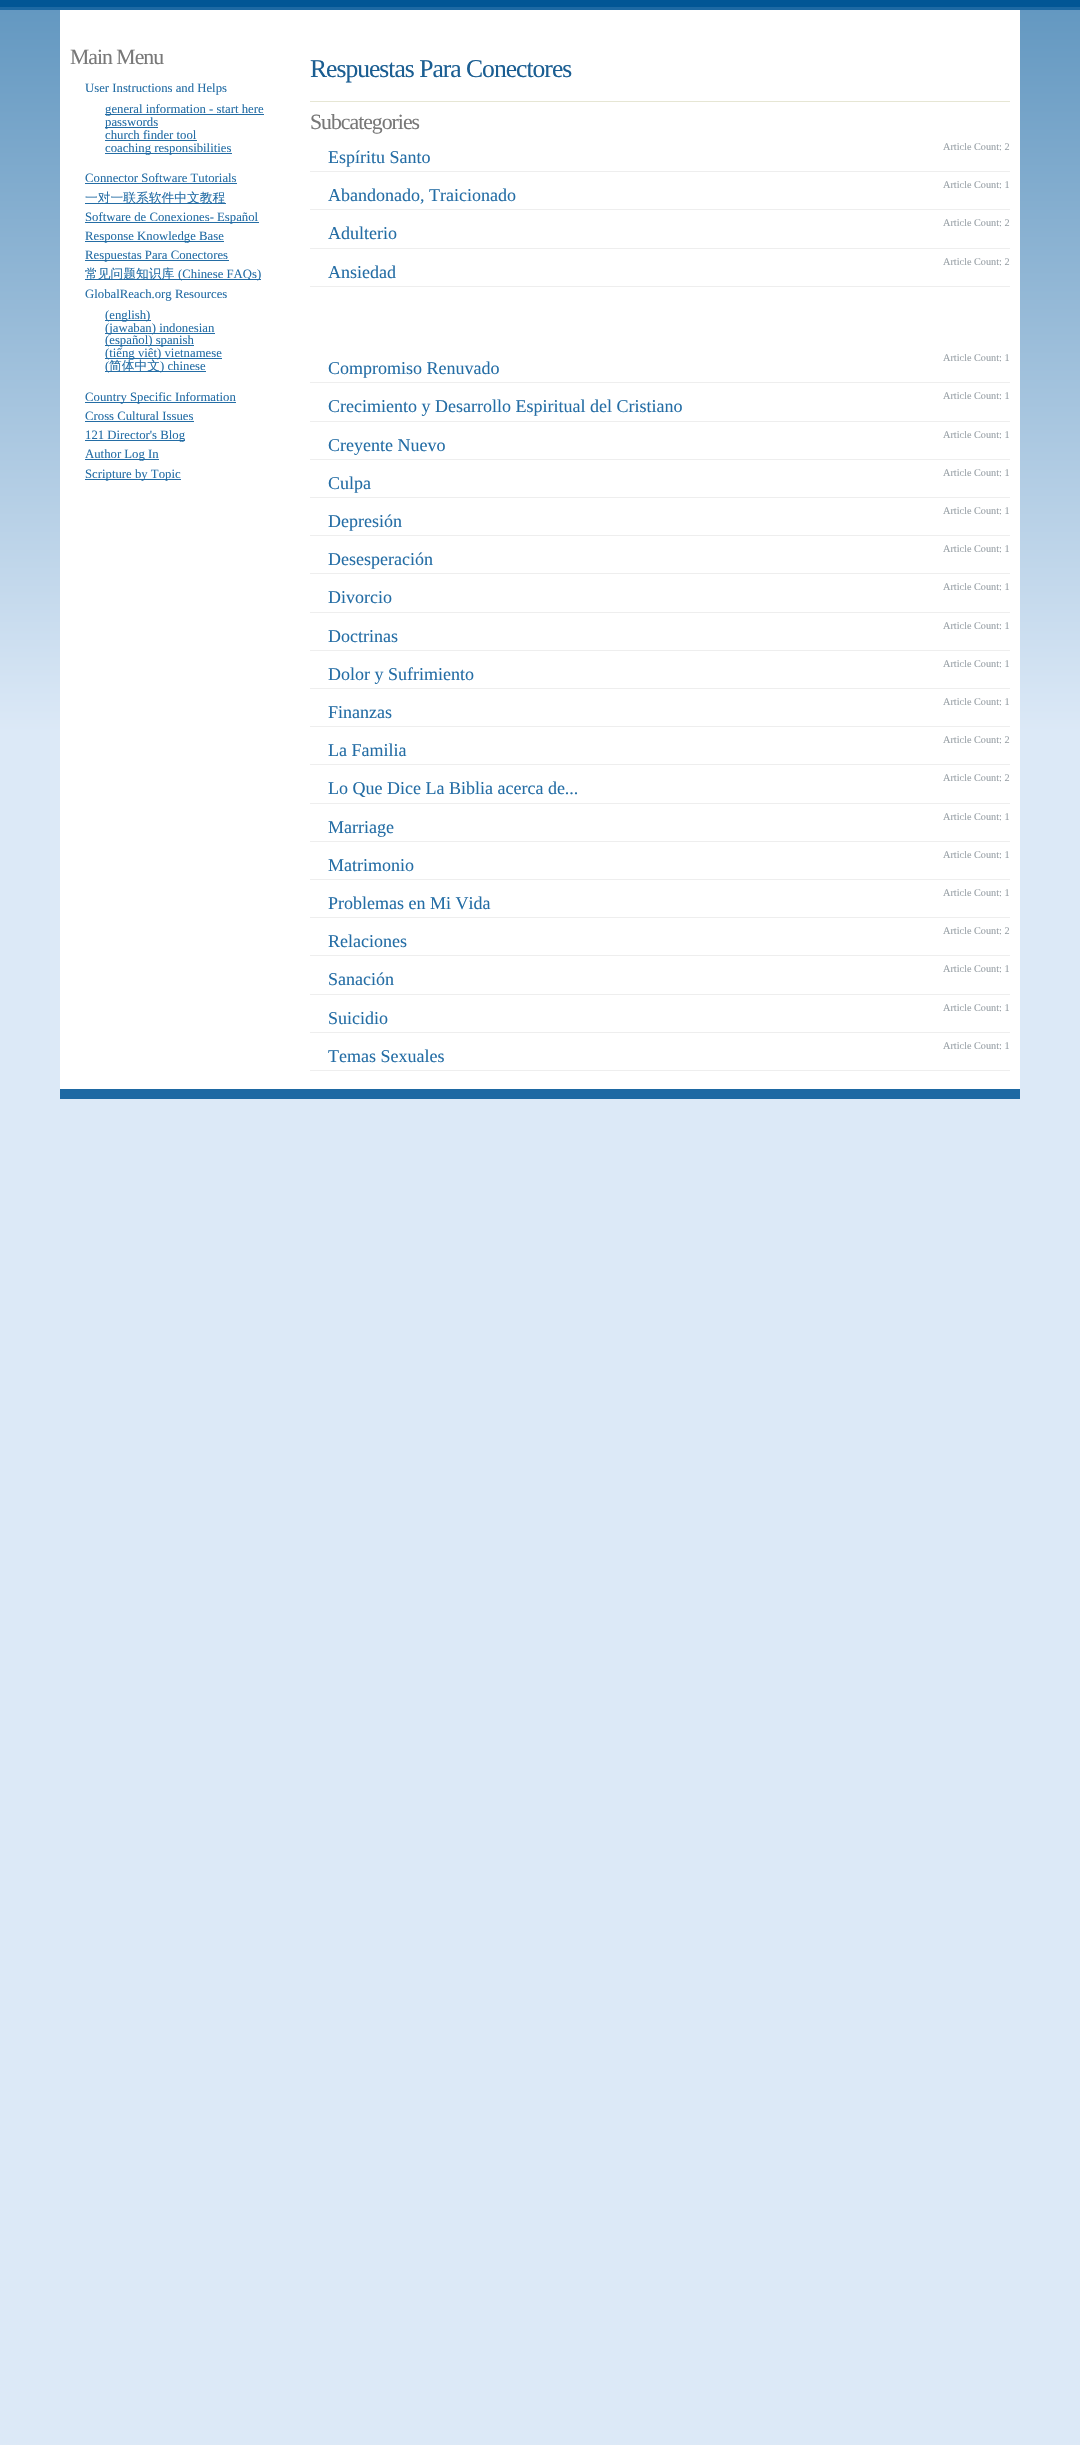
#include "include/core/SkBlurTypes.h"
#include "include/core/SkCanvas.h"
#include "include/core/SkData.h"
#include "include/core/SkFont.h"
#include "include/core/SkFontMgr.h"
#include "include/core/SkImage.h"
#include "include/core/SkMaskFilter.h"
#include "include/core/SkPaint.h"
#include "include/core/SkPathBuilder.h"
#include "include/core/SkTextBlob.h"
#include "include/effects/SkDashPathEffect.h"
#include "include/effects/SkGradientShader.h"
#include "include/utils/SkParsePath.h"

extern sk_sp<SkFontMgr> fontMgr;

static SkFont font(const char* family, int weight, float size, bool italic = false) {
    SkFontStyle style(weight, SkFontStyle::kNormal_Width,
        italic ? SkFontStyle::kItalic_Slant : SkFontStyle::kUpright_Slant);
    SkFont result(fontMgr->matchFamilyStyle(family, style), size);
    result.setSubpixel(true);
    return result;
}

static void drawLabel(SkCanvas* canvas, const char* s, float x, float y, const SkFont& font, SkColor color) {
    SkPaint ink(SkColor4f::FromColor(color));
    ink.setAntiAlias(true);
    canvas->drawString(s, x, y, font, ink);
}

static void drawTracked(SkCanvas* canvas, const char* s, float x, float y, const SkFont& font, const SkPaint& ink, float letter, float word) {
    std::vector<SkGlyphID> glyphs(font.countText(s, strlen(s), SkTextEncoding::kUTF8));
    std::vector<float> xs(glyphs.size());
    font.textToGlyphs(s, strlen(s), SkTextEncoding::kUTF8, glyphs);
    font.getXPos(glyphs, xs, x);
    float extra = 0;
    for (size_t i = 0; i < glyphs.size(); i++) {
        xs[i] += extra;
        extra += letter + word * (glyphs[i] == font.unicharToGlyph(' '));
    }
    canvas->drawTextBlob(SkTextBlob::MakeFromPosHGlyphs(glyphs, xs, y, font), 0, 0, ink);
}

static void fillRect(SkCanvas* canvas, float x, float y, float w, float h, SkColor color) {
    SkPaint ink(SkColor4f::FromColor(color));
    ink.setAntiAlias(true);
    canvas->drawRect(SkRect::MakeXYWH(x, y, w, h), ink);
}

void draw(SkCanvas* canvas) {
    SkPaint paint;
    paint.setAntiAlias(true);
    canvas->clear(0xFFFFFFFF);
    {
        const SkColor colors[] = {0xFFDCE9F7, 0xFF6297C0};
        const float stops[] = {0.7f, 1};
        const SkPoint ends[] = {{0, 2445}, {0, 0}};
        paint.setShader(SkGradientShader::MakeLinear(ends, colors, stops, 2, SkTileMode::kClamp));
        paint.setAlpha(255);
    }
    canvas->drawRect(SkRect::MakeXYWH(0, 10, 1080, 2435), paint);
    fillRect(canvas, 0, 0, 1080, 7, 0xFF025695);
    fillRect(canvas, 0, 7, 1080, 3, 0xFF1E69A3);
    fillRect(canvas, 60, 10, 960, 1079, 0xFFFFFFFF);
    SkFont font1 = font("Liberation Serif", 400, 21.75f);
    paint.setShader(nullptr);
    paint.setColor(0xFF787878);
    drawTracked(canvas, "Main Menu", 70, 64, font1, paint, -1, 0);
    SkFont font2 = font("Liberation Serif", 400, 12.75f);
    drawLabel(canvas, "User Instructions and Helps", 85, 92, font2, 0xFF246DA5);
    fillRect(canvas, 105, 114, 159, 1, 0xFF246DA5);
    drawLabel(canvas, "general information - start here", 105, 113, font2, 0xFF246DA5);
    fillRect(canvas, 105, 127, 53, 1, 0xFF246DA5);
    drawLabel(canvas, "passwords", 105, 126, font2, 0xFF246DA5);
    drawLabel(canvas, "church finder tool", 105, 139, font2, 0xFF246DA5);
    fillRect(canvas, 105, 140, 92, 1, 0xFF246DA5);
    fillRect(canvas, 105, 153, 127, 1, 0xFF246DA5);
    drawLabel(canvas, "coaching responsibilities", 105, 152, font2, 0xFF246DA5);
    drawLabel(canvas, "Connector Software Tutorials", 85, 182, font2, 0xFF246DA5);
    fillRect(canvas, 85, 183, 152, 1, 0xFF246DA5);
    fillRect(canvas, 85, 203, 141, 1, 0xFF246DA5);
    SkFont font3 = font("WenQuanYi Zen Hei", 500, 12.75f);
    drawLabel(canvas, "一对一联系软件中文教程", 85, 202, font3, 0xFF246DA5);
    fillRect(canvas, 85, 222, 174, 1, 0xFF246DA5);
    drawLabel(canvas, "Software de Conexiones- Español", 85, 221, font2, 0xFF246DA5);
    fillRect(canvas, 85, 241, 139, 1, 0xFF246DA5);
    drawLabel(canvas, "Response Knowledge Base", 85, 240, font2, 0xFF246DA5);
    fillRect(canvas, 85, 260, 144, 1, 0xFF246DA5);
    drawLabel(canvas, "Respuestas Para Conectores", 85, 259, font2, 0xFF246DA5);
    fillRect(canvas, 85, 279, 176, 1, 0xFF246DA5);
    drawLabel(canvas, "常见问题知识库", 85, 278, font3, 0xFF246DA5);
    drawLabel(canvas, "(Chinese FAQs)", 178, 278, font2, 0xFF246DA5);
    drawLabel(canvas, "GlobalReach.org Resources", 85, 298, font2, 0xFF246DA5);
    fillRect(canvas, 105, 320, 46, 1, 0xFF246DA5);
    drawLabel(canvas, "(english)", 105, 319, font2, 0xFF246DA5);
    fillRect(canvas, 105, 333, 110, 1, 0xFF246DA5);
    drawLabel(canvas, "(jawaban) indonesian", 105, 332, font2, 0xFF246DA5);
    fillRect(canvas, 105, 345, 89, 1, 0xFF246DA5);
    drawLabel(canvas, "(español) spanish", 105, 344, font2, 0xFF246DA5);
    fillRect(canvas, 105, 358, 117, 1, 0xFF246DA5);
    drawLabel(canvas, "(tiếng việt) vietnamese", 105, 357, font2, 0xFF246DA5);
    fillRect(canvas, 105, 371, 101, 1, 0xFF246DA5);
    drawLabel(canvas, "(", 105, 370, font2, 0xFF246DA5);
    drawLabel(canvas, "简体中文", 109, 370, font3, 0xFF246DA5);
    drawLabel(canvas, ") chinese", 160, 370, font2, 0xFF246DA5);
    fillRect(canvas, 85, 402, 151, 1, 0xFF246DA5);
    drawLabel(canvas, "Country Specific Information", 85, 401, font2, 0xFF246DA5);
    drawLabel(canvas, "Cross Cultural Issues", 85, 420, font2, 0xFF246DA5);
    fillRect(canvas, 85, 421, 109, 1, 0xFF246DA5);
    fillRect(canvas, 85, 440, 100, 1, 0xFF246DA5);
    drawLabel(canvas, "121 Director's Blog", 85, 439, font2, 0xFF246DA5);
    fillRect(canvas, 85, 459, 74, 1, 0xFF246DA5);
    drawLabel(canvas, "Author Log In", 85, 458, font2, 0xFF246DA5);
    fillRect(canvas, 85, 479, 96, 1, 0xFF246DA5);
    drawLabel(canvas, "Scripture by Topic", 85, 478, font2, 0xFF246DA5);
    SkFont font4 = font("Liberation Serif", 400, 25.6f);
    paint.setColor(0xFF1B5E92);
    drawTracked(canvas, "Respuestas Para Conectores", 310, 77, font4, paint, -1, 0);
    fillRect(canvas, 310, 101, 700, 1, 0xFFE6E6D4);
    paint.setColor(0xFF787878);
    drawTracked(canvas, "Subcategories", 310, 129, font1, paint, -1, 0);
    SkFont font5 = font("Liberation Serif", 400, 10.25f);
    drawLabel(canvas, "Article Count: 2", 943, 150, font5, 0xFF99A1A7);
    fillRect(canvas, 310, 171, 700, 1, 0xFFEEEEEE);
    SkFont font6 = font("Liberation Serif", 400, 18);
    drawLabel(canvas, "Espíritu Santo", 328, 163, font6, 0xFF246DA5);
    drawLabel(canvas, "Article Count: 1", 943, 188, font5, 0xFF99A1A7);
    fillRect(canvas, 310, 209, 700, 1, 0xFFEEEEEE);
    drawLabel(canvas, "Abandonado, Traicionado", 328, 201, font6, 0xFF246DA5);
    drawLabel(canvas, "Article Count: 2", 943, 226, font5, 0xFF99A1A7);
    fillRect(canvas, 310, 248, 700, 1, 0xFFEEEEEE);
    drawLabel(canvas, "Adulterio", 328, 239, font6, 0xFF246DA5);
    drawLabel(canvas, "Article Count: 2", 943, 265, font5, 0xFF99A1A7);
    fillRect(canvas, 310, 286, 700, 1, 0xFFEEEEEE);
    drawLabel(canvas, "Ansiedad", 328, 278, font6, 0xFF246DA5);
    drawLabel(canvas, "Article Count: 1", 943, 361, font5, 0xFF99A1A7);
    fillRect(canvas, 310, 382, 700, 1, 0xFFEEEEEE);
    drawLabel(canvas, "Compromiso Renuvado", 328, 374, font6, 0xFF246DA5);
    drawLabel(canvas, "Article Count: 1", 943, 399, font5, 0xFF99A1A7);
    fillRect(canvas, 310, 421, 700, 1, 0xFFEEEEEE);
    drawLabel(canvas, "Crecimiento y Desarrollo Espiritual del Cristiano", 328, 412, font6, 0xFF246DA5);
    drawLabel(canvas, "Article Count: 1", 943, 438, font5, 0xFF99A1A7);
    fillRect(canvas, 310, 459, 700, 1, 0xFFEEEEEE);
    drawLabel(canvas, "Creyente Nuevo", 328, 451, font6, 0xFF246DA5);
    drawLabel(canvas, "Article Count: 1", 943, 476, font5, 0xFF99A1A7);
    fillRect(canvas, 310, 497, 700, 1, 0xFFEEEEEE);
    drawLabel(canvas, "Culpa", 328, 489, font6, 0xFF246DA5);
    drawLabel(canvas, "Article Count: 1", 943, 514, font5, 0xFF99A1A7);
    fillRect(canvas, 310, 535, 700, 1, 0xFFEEEEEE);
    drawLabel(canvas, "Depresión", 328, 527, font6, 0xFF246DA5);
    drawLabel(canvas, "Article Count: 1", 943, 552, font5, 0xFF99A1A7);
    fillRect(canvas, 310, 573, 700, 1, 0xFFEEEEEE);
    drawLabel(canvas, "Desesperación", 328, 565, font6, 0xFF246DA5);
    drawLabel(canvas, "Article Count: 1", 943, 590, font5, 0xFF99A1A7);
    fillRect(canvas, 310, 612, 700, 1, 0xFFEEEEEE);
    drawLabel(canvas, "Divorcio", 328, 603, font6, 0xFF246DA5);
    drawLabel(canvas, "Article Count: 1", 943, 629, font5, 0xFF99A1A7);
    fillRect(canvas, 310, 650, 700, 1, 0xFFEEEEEE);
    drawLabel(canvas, "Doctrinas", 328, 642, font6, 0xFF246DA5);
    drawLabel(canvas, "Article Count: 1", 943, 667, font5, 0xFF99A1A7);
    fillRect(canvas, 310, 688, 700, 1, 0xFFEEEEEE);
    drawLabel(canvas, "Dolor y Sufrimiento", 328, 680, font6, 0xFF246DA5);
    drawLabel(canvas, "Article Count: 1", 943, 705, font5, 0xFF99A1A7);
    fillRect(canvas, 310, 726, 700, 1, 0xFFEEEEEE);
    drawLabel(canvas, "Finanzas", 328, 718, font6, 0xFF246DA5);
    drawLabel(canvas, "Article Count: 2", 943, 743, font5, 0xFF99A1A7);
    fillRect(canvas, 310, 764, 700, 1, 0xFFEEEEEE);
    drawLabel(canvas, "La Familia", 328, 756, font6, 0xFF246DA5);
    drawLabel(canvas, "Article Count: 2", 943, 781, font5, 0xFF99A1A7);
    fillRect(canvas, 310, 803, 700, 1, 0xFFEEEEEE);
    drawLabel(canvas, "Lo Que Dice La Biblia acerca de...", 328, 794, font6, 0xFF246DA5);
    drawLabel(canvas, "Article Count: 1", 943, 820, font5, 0xFF99A1A7);
    fillRect(canvas, 310, 841, 700, 1, 0xFFEEEEEE);
    drawLabel(canvas, "Marriage", 328, 833, font6, 0xFF246DA5);
    drawLabel(canvas, "Article Count: 1", 943, 858, font5, 0xFF99A1A7);
    fillRect(canvas, 310, 879, 700, 1, 0xFFEEEEEE);
    drawLabel(canvas, "Matrimonio", 328, 871, font6, 0xFF246DA5);
    drawLabel(canvas, "Article Count: 1", 943, 896, font5, 0xFF99A1A7);
    fillRect(canvas, 310, 917, 700, 1, 0xFFEEEEEE);
    drawLabel(canvas, "Problemas en Mi Vida", 328, 909, font6, 0xFF246DA5);
    drawLabel(canvas, "Article Count: 2", 943, 934, font5, 0xFF99A1A7);
    fillRect(canvas, 310, 955, 700, 1, 0xFFEEEEEE);
    drawLabel(canvas, "Relaciones", 328, 947, font6, 0xFF246DA5);
    drawLabel(canvas, "Article Count: 1", 943, 972, font5, 0xFF99A1A7);
    fillRect(canvas, 310, 994, 700, 1, 0xFFEEEEEE);
    drawLabel(canvas, "Sanación", 328, 985, font6, 0xFF246DA5);
    drawLabel(canvas, "Article Count: 1", 943, 1011, font5, 0xFF99A1A7);
    fillRect(canvas, 310, 1032, 700, 1, 0xFFEEEEEE);
    drawLabel(canvas, "Suicidio", 328, 1024, font6, 0xFF246DA5);
    drawLabel(canvas, "Article Count: 1", 943, 1049, font5, 0xFF99A1A7);
    fillRect(canvas, 310, 1070, 700, 1, 0xFFEEEEEE);
    drawLabel(canvas, "Temas Sexuales", 328, 1062, font6, 0xFF246DA5);
    fillRect(canvas, 60, 1089, 960, 10, 0xFF1E69A3);
}
